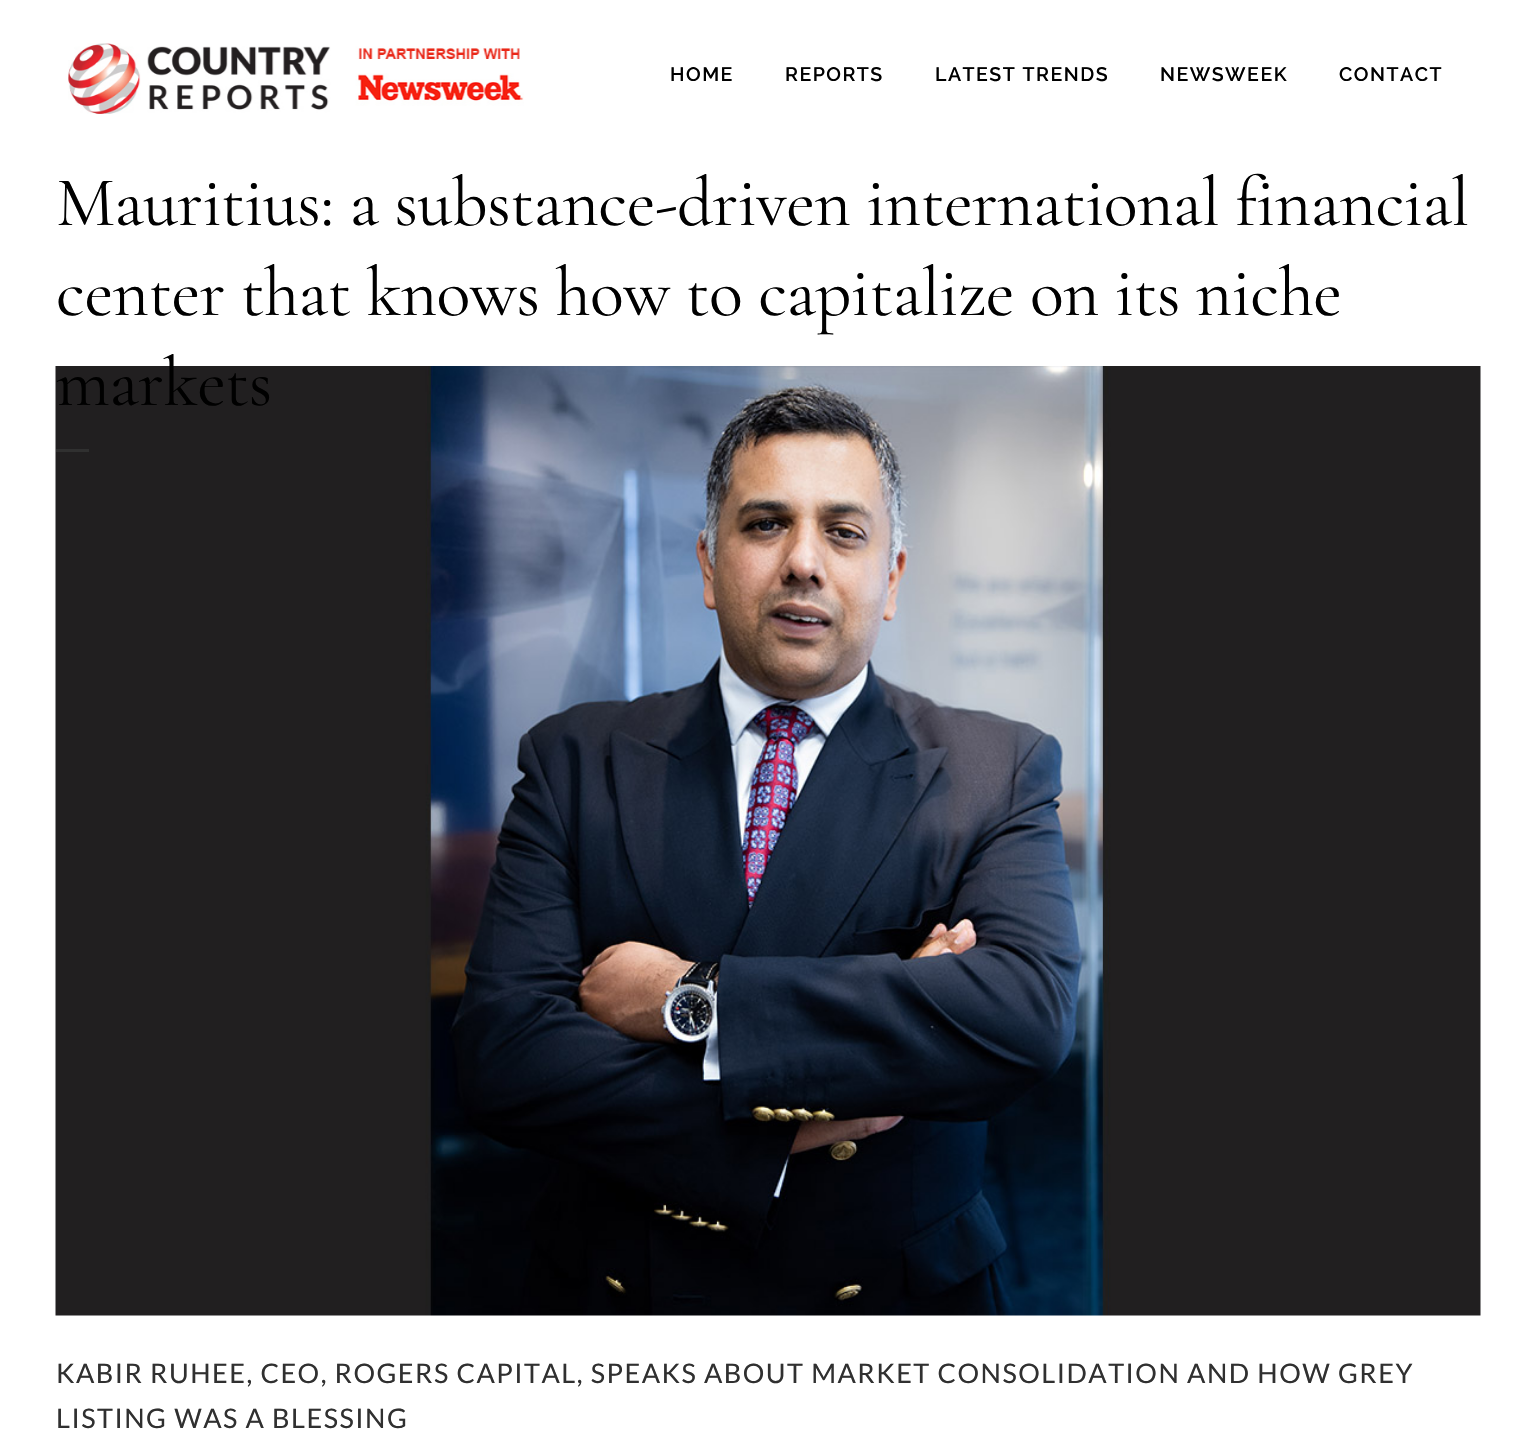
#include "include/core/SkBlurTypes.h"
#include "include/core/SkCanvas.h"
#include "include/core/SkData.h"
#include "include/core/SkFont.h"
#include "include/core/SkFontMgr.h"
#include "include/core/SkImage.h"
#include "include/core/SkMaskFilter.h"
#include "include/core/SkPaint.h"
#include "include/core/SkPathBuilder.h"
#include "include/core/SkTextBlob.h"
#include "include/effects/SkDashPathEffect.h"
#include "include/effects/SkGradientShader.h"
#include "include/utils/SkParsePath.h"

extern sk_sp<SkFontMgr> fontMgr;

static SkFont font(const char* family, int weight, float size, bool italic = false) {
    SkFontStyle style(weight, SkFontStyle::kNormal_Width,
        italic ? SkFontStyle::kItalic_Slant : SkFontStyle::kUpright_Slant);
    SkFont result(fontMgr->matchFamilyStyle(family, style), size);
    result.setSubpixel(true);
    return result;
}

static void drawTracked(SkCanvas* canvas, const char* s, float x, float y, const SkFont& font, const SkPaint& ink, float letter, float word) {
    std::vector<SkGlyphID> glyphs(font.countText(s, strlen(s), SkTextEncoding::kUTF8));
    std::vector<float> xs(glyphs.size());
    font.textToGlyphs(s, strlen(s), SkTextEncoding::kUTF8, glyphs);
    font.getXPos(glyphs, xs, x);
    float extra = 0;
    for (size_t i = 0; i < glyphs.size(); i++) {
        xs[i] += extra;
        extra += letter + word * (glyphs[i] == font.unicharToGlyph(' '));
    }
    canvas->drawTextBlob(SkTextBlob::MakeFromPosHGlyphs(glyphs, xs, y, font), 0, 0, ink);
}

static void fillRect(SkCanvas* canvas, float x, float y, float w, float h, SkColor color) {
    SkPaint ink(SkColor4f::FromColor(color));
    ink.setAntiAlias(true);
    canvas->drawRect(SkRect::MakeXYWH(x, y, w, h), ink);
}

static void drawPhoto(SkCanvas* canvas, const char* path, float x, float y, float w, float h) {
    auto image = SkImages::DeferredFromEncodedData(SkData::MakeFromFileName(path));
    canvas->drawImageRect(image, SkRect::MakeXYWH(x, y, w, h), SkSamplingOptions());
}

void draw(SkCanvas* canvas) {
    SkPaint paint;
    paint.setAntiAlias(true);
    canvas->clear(0xFFFFFFFF);
    drawPhoto(canvas, "assets/img1.png", 68, 43, 456, 71);
    SkFont font1 = font("Raleway", 600, 19.5f);
    paint.setColor(0xFF000000);
    drawTracked(canvas, "HOME", 670, 81, font1, paint, 1.5f, 0);
    drawTracked(canvas, "REPORTS", 785, 81, font1, paint, 1.5f, 0);
    drawTracked(canvas, "LATEST TRENDS", 935, 81, font1, paint, 1.5f, 0);
    drawTracked(canvas, "NEWSWEEK", 1160, 81, font1, paint, 1.5f, 0);
    drawTracked(canvas, "CONTACT", 1339, 81, font1, paint, 1.5f, 0);
    SkFont font2 = font("Cormorant Garamond", 400, 70.5f);
    drawTracked(canvas, "Mauritius: a substance-driven international financial", 56, 225, font2, paint, -0.6f, 0);
    drawTracked(canvas, "center that knows how to capitalize on its niche", 56, 315, font2, paint, -0.6f, 0);
    drawPhoto(canvas, "assets/img2.png", 55, 366, 1426, 950);
    drawTracked(canvas, "markets", 56, 405, font2, paint, -0.6f, 0);
    fillRect(canvas, 56, 449, 33, 3, 0xFF303030);
    SkFont font3 = font("Lato", 400, 27);
    paint.setColor(0xFF303030);
    drawTracked(canvas, "KABIR RUHEE, CEO, ROGERS CAPITAL, SPEAKS ABOUT MARKET CONSOLIDATION AND HOW GREY", 56, 1383, font3, paint, 1.5f, 0);
    drawTracked(canvas, "LISTING WAS A BLESSING", 56, 1428, font3, paint, 1.5f, 0);
}
